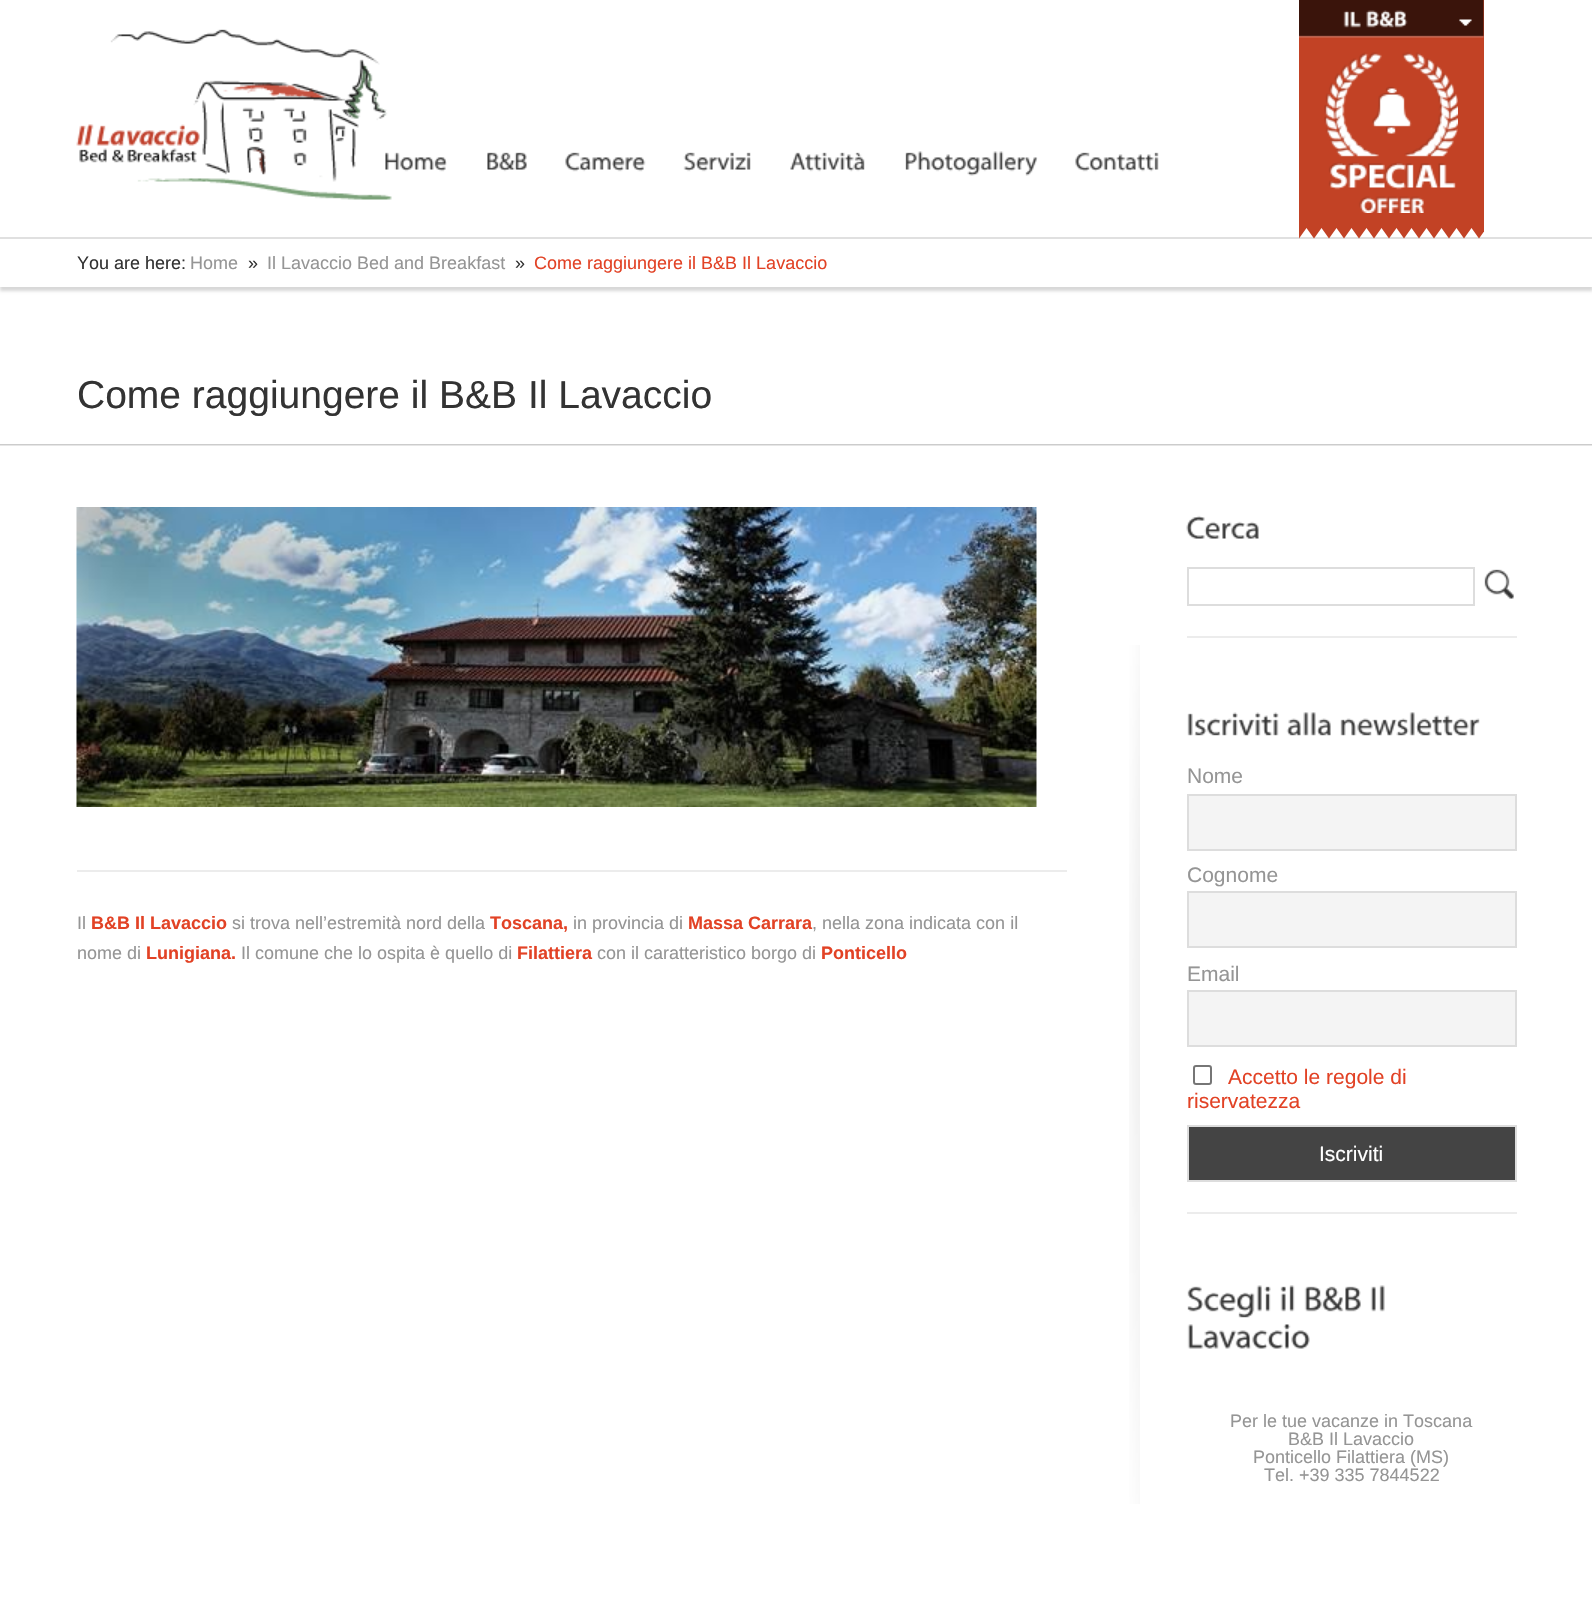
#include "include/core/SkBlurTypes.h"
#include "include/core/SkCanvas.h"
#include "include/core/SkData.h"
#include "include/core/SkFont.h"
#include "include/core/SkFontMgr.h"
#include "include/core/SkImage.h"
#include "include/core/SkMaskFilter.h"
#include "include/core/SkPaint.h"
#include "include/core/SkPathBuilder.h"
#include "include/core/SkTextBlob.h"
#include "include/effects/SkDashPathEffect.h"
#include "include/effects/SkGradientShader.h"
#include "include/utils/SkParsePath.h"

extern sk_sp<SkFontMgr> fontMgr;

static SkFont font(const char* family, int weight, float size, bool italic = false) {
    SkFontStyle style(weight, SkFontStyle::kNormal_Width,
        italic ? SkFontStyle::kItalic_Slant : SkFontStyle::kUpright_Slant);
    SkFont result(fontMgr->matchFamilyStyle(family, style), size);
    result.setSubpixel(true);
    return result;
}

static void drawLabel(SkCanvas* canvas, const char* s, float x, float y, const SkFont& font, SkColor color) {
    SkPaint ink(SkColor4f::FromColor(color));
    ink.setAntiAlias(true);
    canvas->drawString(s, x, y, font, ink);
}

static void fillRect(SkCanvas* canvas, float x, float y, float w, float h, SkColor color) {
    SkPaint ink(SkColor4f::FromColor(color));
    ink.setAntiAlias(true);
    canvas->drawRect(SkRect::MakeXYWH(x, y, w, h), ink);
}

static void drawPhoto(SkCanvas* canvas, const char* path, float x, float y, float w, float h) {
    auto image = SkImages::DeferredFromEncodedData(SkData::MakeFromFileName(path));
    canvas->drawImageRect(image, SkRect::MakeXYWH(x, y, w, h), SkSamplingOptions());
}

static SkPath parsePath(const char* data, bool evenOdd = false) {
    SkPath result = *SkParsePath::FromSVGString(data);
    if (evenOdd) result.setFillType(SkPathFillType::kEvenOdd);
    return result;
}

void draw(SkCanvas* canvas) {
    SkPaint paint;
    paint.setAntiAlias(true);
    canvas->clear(0xFFFFFFFF);
    drawPhoto(canvas, "assets/img1.png", 0, 222, 1592, 11);
    drawPhoto(canvas, "assets/img2.png", 0, 0, 1592, 233);
    drawPhoto(canvas, "assets/img3.png", 76, 29, 316, 171);
    drawPhoto(canvas, "assets/img4.png", 385, 152, 62, 20);
    drawPhoto(canvas, "assets/img5.png", 487, 152, 40, 20);
    drawPhoto(canvas, "assets/img6.png", 565, 152, 81, 20);
    drawPhoto(canvas, "assets/img7.png", 683, 152, 68, 20);
    drawPhoto(canvas, "assets/img8.png", 790, 152, 75, 20);
    drawPhoto(canvas, "assets/img9.png", 905, 151, 133, 25);
    drawPhoto(canvas, "assets/img10.png", 1075, 152, 84, 20);
    fillRect(canvas, 1299, 0, 185, 228, 0xFFC24225);
    drawPhoto(canvas, "assets/img11.png", 1299, 0, 185, 38);
    drawPhoto(canvas, "assets/img12.png", 1459, 19, 13, 7);
    drawPhoto(canvas, "assets/img13.png", 1343, 10, 18, 18);
    drawPhoto(canvas, "assets/img14.png", 1366, 10, 42, 18);
    drawPhoto(canvas, "assets/img15.png", 1324, 52, 134, 161);
    canvas->save();
    canvas->clipPath(parsePath("M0 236H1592V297H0ZM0 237H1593V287H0Z", true), true);
    paint.setColor(0xFFD8D8D8);
    paint.setMaskFilter(SkMaskFilter::MakeBlur(kNormal_SkBlurStyle, 1.5f));
    canvas->drawRect(SkRect::MakeXYWH(0, 242, 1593, 49), paint);
    paint.setMaskFilter(nullptr);
    canvas->restore();
    fillRect(canvas, 0, 237, 1592, 2, 0xFFE0E0E0);
    canvas->save();
    canvas->clipRect(SkRect::MakeXYWH(1299, 228, 185, 15));
    paint.setColor(0xFFC24225);
    canvas->drawPath(parsePath("M1291.5 228H1306.5L1299 238.5Z"), paint);
    canvas->restore();
    canvas->drawPath(parsePath("M1306.5 228H1321.5L1314 238.5Z"), paint);
    canvas->drawPath(parsePath("M1321.5 228H1336.5L1329 238.5Z"), paint);
    canvas->drawPath(parsePath("M1336.5 228H1351.5L1344 238.5Z"), paint);
    canvas->drawPath(parsePath("M1351.5 228H1366.5L1359 238.5Z"), paint);
    canvas->drawPath(parsePath("M1366.5 228H1381.5L1374 238.5Z"), paint);
    canvas->drawPath(parsePath("M1381.5 228H1396.5L1389 238.5Z"), paint);
    canvas->drawPath(parsePath("M1396.5 228H1411.5L1404 238.5Z"), paint);
    canvas->drawPath(parsePath("M1411.5 228H1426.5L1419 238.5Z"), paint);
    canvas->drawPath(parsePath("M1426.5 228H1441.5L1434 238.5Z"), paint);
    canvas->drawPath(parsePath("M1441.5 228H1456.5L1449 238.5Z"), paint);
    canvas->drawPath(parsePath("M1456.5 228H1471.5L1464 238.5Z"), paint);
    canvas->save();
    canvas->clipRect(SkRect::MakeXYWH(1299, 228, 185, 15));
    canvas->drawPath(parsePath("M1471.5 228H1486.5L1479 238.5Z"), paint);
    canvas->restore();
    SkFont font1 = font("Liberation Sans", 400, 18);
    drawLabel(canvas, "You are here:", 77, 269, font1, 0xFF333333);
    drawLabel(canvas, "Home", 190, 269, font1, 0xFF959595);
    drawLabel(canvas, "»", 248, 269, font1, 0xFF333333);
    drawLabel(canvas, "Il Lavaccio Bed and Breakfast", 267, 269, font1, 0xFF959595);
    drawLabel(canvas, "»", 515, 269, font1, 0xFF333333);
    drawLabel(canvas, "Come raggiungere il B&B Il Lavaccio", 534, 269, font1, 0xFFE24225);
    SkFont font2 = font("Liberation Sans", 400, 39);
    drawLabel(canvas, "Come raggiungere il B&B Il Lavaccio", 77, 408, font2, 0xFF333333);
    drawPhoto(canvas, "assets/img16.png", 0, 444, 1592, 2);
    drawPhoto(canvas, "assets/img17.png", 1129, 645, 11, 859);
    drawPhoto(canvas, "assets/img18.png", 76, 507, 961, 300);
    fillRect(canvas, 77, 870, 990, 2, 0xFFECECEC);
    drawLabel(canvas, "Il", 77, 929, font1, 0xFF959595);
    SkFont font3 = font("Liberation Sans", 700, 18);
    drawLabel(canvas, "B&B Il Lavaccio", 91, 929, font3, 0xFFE24225);
    drawLabel(canvas, "si trova nell’estremità nord della", 232, 929, font1, 0xFF959595);
    drawLabel(canvas, "Toscana,", 490, 929, font3, 0xFFE24225);
    drawLabel(canvas, "in provincia di", 573, 929, font1, 0xFF959595);
    drawLabel(canvas, "Massa Carrara", 688, 929, font3, 0xFFE24225);
    drawLabel(canvas, ", nella zona indicata con il", 812, 929, font1, 0xFF959595);
    drawLabel(canvas, "nome di", 77, 959, font1, 0xFF959595);
    drawLabel(canvas, "Lunigiana.", 146, 959, font3, 0xFFE24225);
    drawLabel(canvas, "Il comune che lo ospita è quello di", 241, 959, font1, 0xFF959595);
    drawLabel(canvas, "Filattiera", 517, 959, font3, 0xFFE24225);
    drawLabel(canvas, "con il caratteristico borgo di", 597, 959, font1, 0xFF959595);
    drawLabel(canvas, "Ponticello", 821, 959, font3, 0xFFE24225);
    drawPhoto(canvas, "assets/img19.png", 1186, 515, 73, 24);
    paint.setStroke(true);
    paint.setStrokeWidth(2);
    paint.setColor(0xFFDDDDDD);
    canvas->drawRect(SkRect::MakeXYWH(1188, 568, 286, 37), paint);
    drawPhoto(canvas, "assets/img20.png", 1484, 569, 30, 30);
    fillRect(canvas, 1187, 636, 330, 2, 0xFFECECEC);
    drawPhoto(canvas, "assets/img21.png", 1187, 712, 92, 24);
    drawPhoto(canvas, "assets/img22.png", 1286, 712, 45, 24);
    drawPhoto(canvas, "assets/img23.png", 1340, 712, 140, 24);
    SkFont font4 = font("Liberation Sans", 400, 21);
    drawLabel(canvas, "Nome", 1187, 783, font4, 0xFF959595);
    paint.setStroke(false);
    paint.setColor(0xFFF4F4F4);
    canvas->drawRect(SkRect::MakeXYWH(1188, 795, 328, 55), paint);
    paint.setStroke(true);
    paint.setColor(0xFFDDDDDD);
    canvas->drawRect(SkRect::MakeXYWH(1188, 795, 328, 55), paint);
    drawLabel(canvas, "Cognome", 1187, 882, font4, 0xFF959595);
    paint.setStroke(false);
    paint.setColor(0xFFF4F4F4);
    canvas->drawRect(SkRect::MakeXYWH(1188, 892, 328, 55), paint);
    paint.setStroke(true);
    paint.setColor(0xFFDDDDDD);
    canvas->drawRect(SkRect::MakeXYWH(1188, 892, 328, 55), paint);
    drawLabel(canvas, "Email", 1187, 981, font4, 0xFF959595);
    paint.setStroke(false);
    paint.setColor(0xFFF4F4F4);
    canvas->drawRect(SkRect::MakeXYWH(1188, 991, 328, 55), paint);
    paint.setStroke(true);
    paint.setColor(0xFFDDDDDD);
    canvas->drawRect(SkRect::MakeXYWH(1188, 991, 328, 55), paint);
    paint.setColor(0xFF767676);
    canvas->drawRoundRect(SkRect::MakeXYWH(1194, 1066, 17, 18), 2, 2, paint);
    drawLabel(canvas, "Accetto le regole di", 1228, 1084, font4, 0xFFE24225);
    drawLabel(canvas, "riservatezza", 1187, 1108, font4, 0xFFE24225);
    paint.setStroke(false);
    paint.setColor(0xFF444444);
    canvas->drawRect(SkRect::MakeXYWH(1188, 1126, 328, 55), paint);
    paint.setStroke(true);
    paint.setColor(0xFFDDDDDD);
    canvas->drawRect(SkRect::MakeXYWH(1188, 1126, 328, 55), paint);
    drawLabel(canvas, "Iscriviti", 1319, 1161, font4, 0xFFFFFFFF);
    fillRect(canvas, 1187, 1212, 330, 2, 0xFFECECEC);
    drawPhoto(canvas, "assets/img24.png", 1187, 1285, 84, 33);
    drawPhoto(canvas, "assets/img25.png", 1280, 1285, 15, 27);
    drawPhoto(canvas, "assets/img26.png", 1304, 1286, 57, 26);
    drawPhoto(canvas, "assets/img27.png", 1370, 1285, 15, 27);
    drawPhoto(canvas, "assets/img28.png", 1187, 1324, 123, 25);
    drawLabel(canvas, "Per le tue vacanze in Toscana", 1230, 1427, font1, 0xFF959595);
    drawLabel(canvas, "B&B Il Lavaccio", 1288, 1445, font1, 0xFF959595);
    drawLabel(canvas, "Ponticello Filattiera (MS)", 1253, 1463, font1, 0xFF959595);
    drawLabel(canvas, "Tel. +39 335 7844522", 1264, 1481, font1, 0xFF959595);
}
